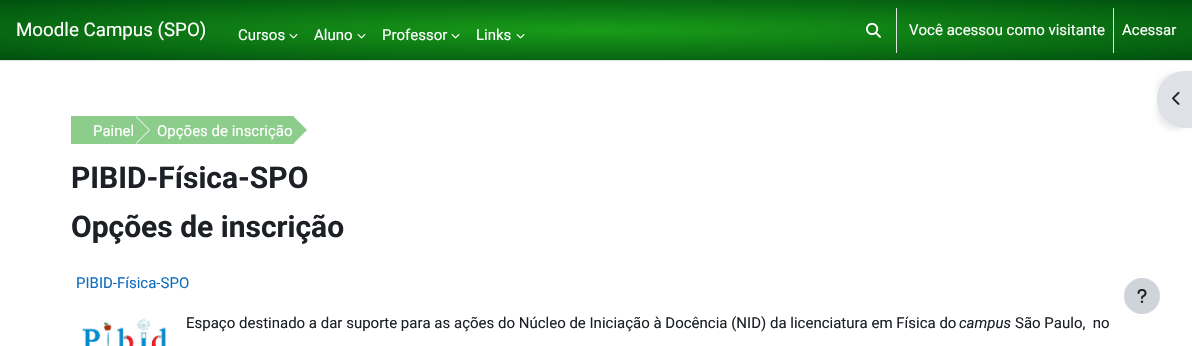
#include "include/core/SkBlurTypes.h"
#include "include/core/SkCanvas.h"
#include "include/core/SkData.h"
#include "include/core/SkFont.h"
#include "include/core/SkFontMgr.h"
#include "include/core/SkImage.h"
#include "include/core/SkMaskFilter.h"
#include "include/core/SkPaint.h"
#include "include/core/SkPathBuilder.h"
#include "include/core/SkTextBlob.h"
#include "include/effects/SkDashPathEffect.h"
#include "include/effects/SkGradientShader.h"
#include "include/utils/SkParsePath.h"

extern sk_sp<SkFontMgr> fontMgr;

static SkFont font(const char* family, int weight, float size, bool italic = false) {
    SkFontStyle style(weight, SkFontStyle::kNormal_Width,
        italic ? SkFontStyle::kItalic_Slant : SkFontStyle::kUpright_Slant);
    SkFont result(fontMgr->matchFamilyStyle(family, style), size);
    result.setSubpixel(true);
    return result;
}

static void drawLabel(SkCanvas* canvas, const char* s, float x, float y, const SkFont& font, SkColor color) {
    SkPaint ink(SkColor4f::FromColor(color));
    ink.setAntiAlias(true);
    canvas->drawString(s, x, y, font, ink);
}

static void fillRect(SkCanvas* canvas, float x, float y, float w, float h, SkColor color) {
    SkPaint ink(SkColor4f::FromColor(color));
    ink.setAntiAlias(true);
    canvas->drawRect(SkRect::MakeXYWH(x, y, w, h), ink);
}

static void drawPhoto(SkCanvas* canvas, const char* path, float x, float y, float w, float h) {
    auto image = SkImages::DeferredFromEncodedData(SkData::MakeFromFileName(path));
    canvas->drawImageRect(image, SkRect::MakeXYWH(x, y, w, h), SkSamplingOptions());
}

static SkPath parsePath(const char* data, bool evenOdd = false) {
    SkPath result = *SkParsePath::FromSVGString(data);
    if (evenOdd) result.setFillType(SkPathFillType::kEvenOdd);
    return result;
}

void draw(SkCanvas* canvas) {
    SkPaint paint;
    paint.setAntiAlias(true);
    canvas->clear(0xFFFFFFFF);
    {
        const SkColor colors[] = {0xFF199C19, 0xFF00510F};
        const float stops[] = {0.01f, 1};
        SkMatrix m = SkMatrix::Translate(596, 30).preScale(843, 42);
        paint.setShader(SkGradientShader::MakeRadial({0, 0}, 1, colors, stops, 2, SkTileMode::kClamp, 0, &m));
        paint.setAlpha(255);
    }
    canvas->drawRect(SkRect::MakeXYWH(0, 0, 1192, 60), paint);
    fillRect(canvas, 0, 60, 1192, 1, 0xFFDEE2E6);
    SkFont font1 = font("Roboto", 400, 18.75f);
    drawLabel(canvas, "Moodle Campus (SPO)", 16, 36, font1, 0xFFFFFFFF);
    SkFont font2 = font("Roboto", 400, 15);
    drawLabel(canvas, "Cursos", 238, 40, font2, 0xFFFFFFFF);
    drawPhoto(canvas, "assets/img1.png", 289, 34, 9, 5);
    drawLabel(canvas, "Aluno", 314, 40, font2, 0xFFFFFFFF);
    drawPhoto(canvas, "assets/img2.png", 357, 34, 9, 5);
    drawLabel(canvas, "Professor", 382, 40, font2, 0xFFFFFFFF);
    drawPhoto(canvas, "assets/img3.png", 451, 34, 9, 5);
    drawLabel(canvas, "Links", 476, 40, font2, 0xFFFFFFFF);
    drawPhoto(canvas, "assets/img4.png", 516, 34, 9, 5);
    drawPhoto(canvas, "assets/img5.png", 866, 22, 15, 16);
    fillRect(canvas, 896, 8, 1, 45, 0xFFDEE2E6);
    drawLabel(canvas, "Você acessou como visitante", 909, 35, font2, 0xFFFFFFFF);
    fillRect(canvas, 1113, 8, 1, 45, 0xFFDEE2E6);
    drawLabel(canvas, "Acessar", 1122, 35, font2, 0xFFFFFFFF);
    paint.setShader(nullptr);
    paint.setColor(0x12000000);
    paint.setMaskFilter(SkMaskFilter::MakeBlur(kNormal_SkBlurStyle, 2));
    canvas->drawRoundRect(SkRect::MakeXYWH(1157, 73, 35, 57), 28, 28, paint);
    paint.setMaskFilter(nullptr);
    paint.setColor(0xFFDEE2E6);
    canvas->drawPath(parsePath("M1185 71H1192V128H1185C1169.5 128 1157 115.5 1157 100V99C1157 83.5 1169.5 71 1185 71Z"), paint);
    drawPhoto(canvas, "assets/img6.png", 1172, 91, 8, 14);
    fillRect(canvas, 71, 116, 223, 28, 0xFF8CCD8C);
    paint.setColor(0xFFFFFFFF);
    canvas->drawPath(parsePath("M136 144V116L150 130Z"), paint);
    paint.setColor(0xFF8CCD8C);
    canvas->drawPath(parsePath("M135 144V116L149 130Z"), paint);
    drawLabel(canvas, "Painel", 93, 136, font2, 0xFFFFFFFF);
    drawLabel(canvas, "Opções de inscrição", 157, 136, font2, 0xFFFFFFFF);
    canvas->drawPath(parsePath("M293 144V116L307 130Z"), paint);
    SkFont font3 = font("Roboto", 700, 30);
    drawLabel(canvas, "PIBID-Física-SPO", 71, 188, font3, 0xFF1D2125);
    drawLabel(canvas, "Opções de inscrição", 71, 237, font3, 0xFF1D2125);
    drawLabel(canvas, "PIBID-Física-SPO", 76, 288, font2, 0xFF0F6CBF);
    drawPhoto(canvas, "assets/img7.png", 81, 318, 86, 28);
    drawLabel(canvas, "Espaço destinado a dar suporte para as ações do Núcleo de Iniciação à Docência (NID) da licenciatura em Física do", 186, 328, font2, 0xFF1D2125);
    SkFont font4 = font("Roboto", 400, 15, true);
    drawLabel(canvas, "campus", 959, 328, font4, 0xFF1D2125);
    drawLabel(canvas, "São Paulo,  no", 1015, 328, font2, 0xFF1D2125);
    paint.setColor(0xFFCED4DA);
    canvas->drawCircle(1142, 296, 18, paint);
    drawPhoto(canvas, "assets/img8.png", 1137, 289, 10, 14);
}
